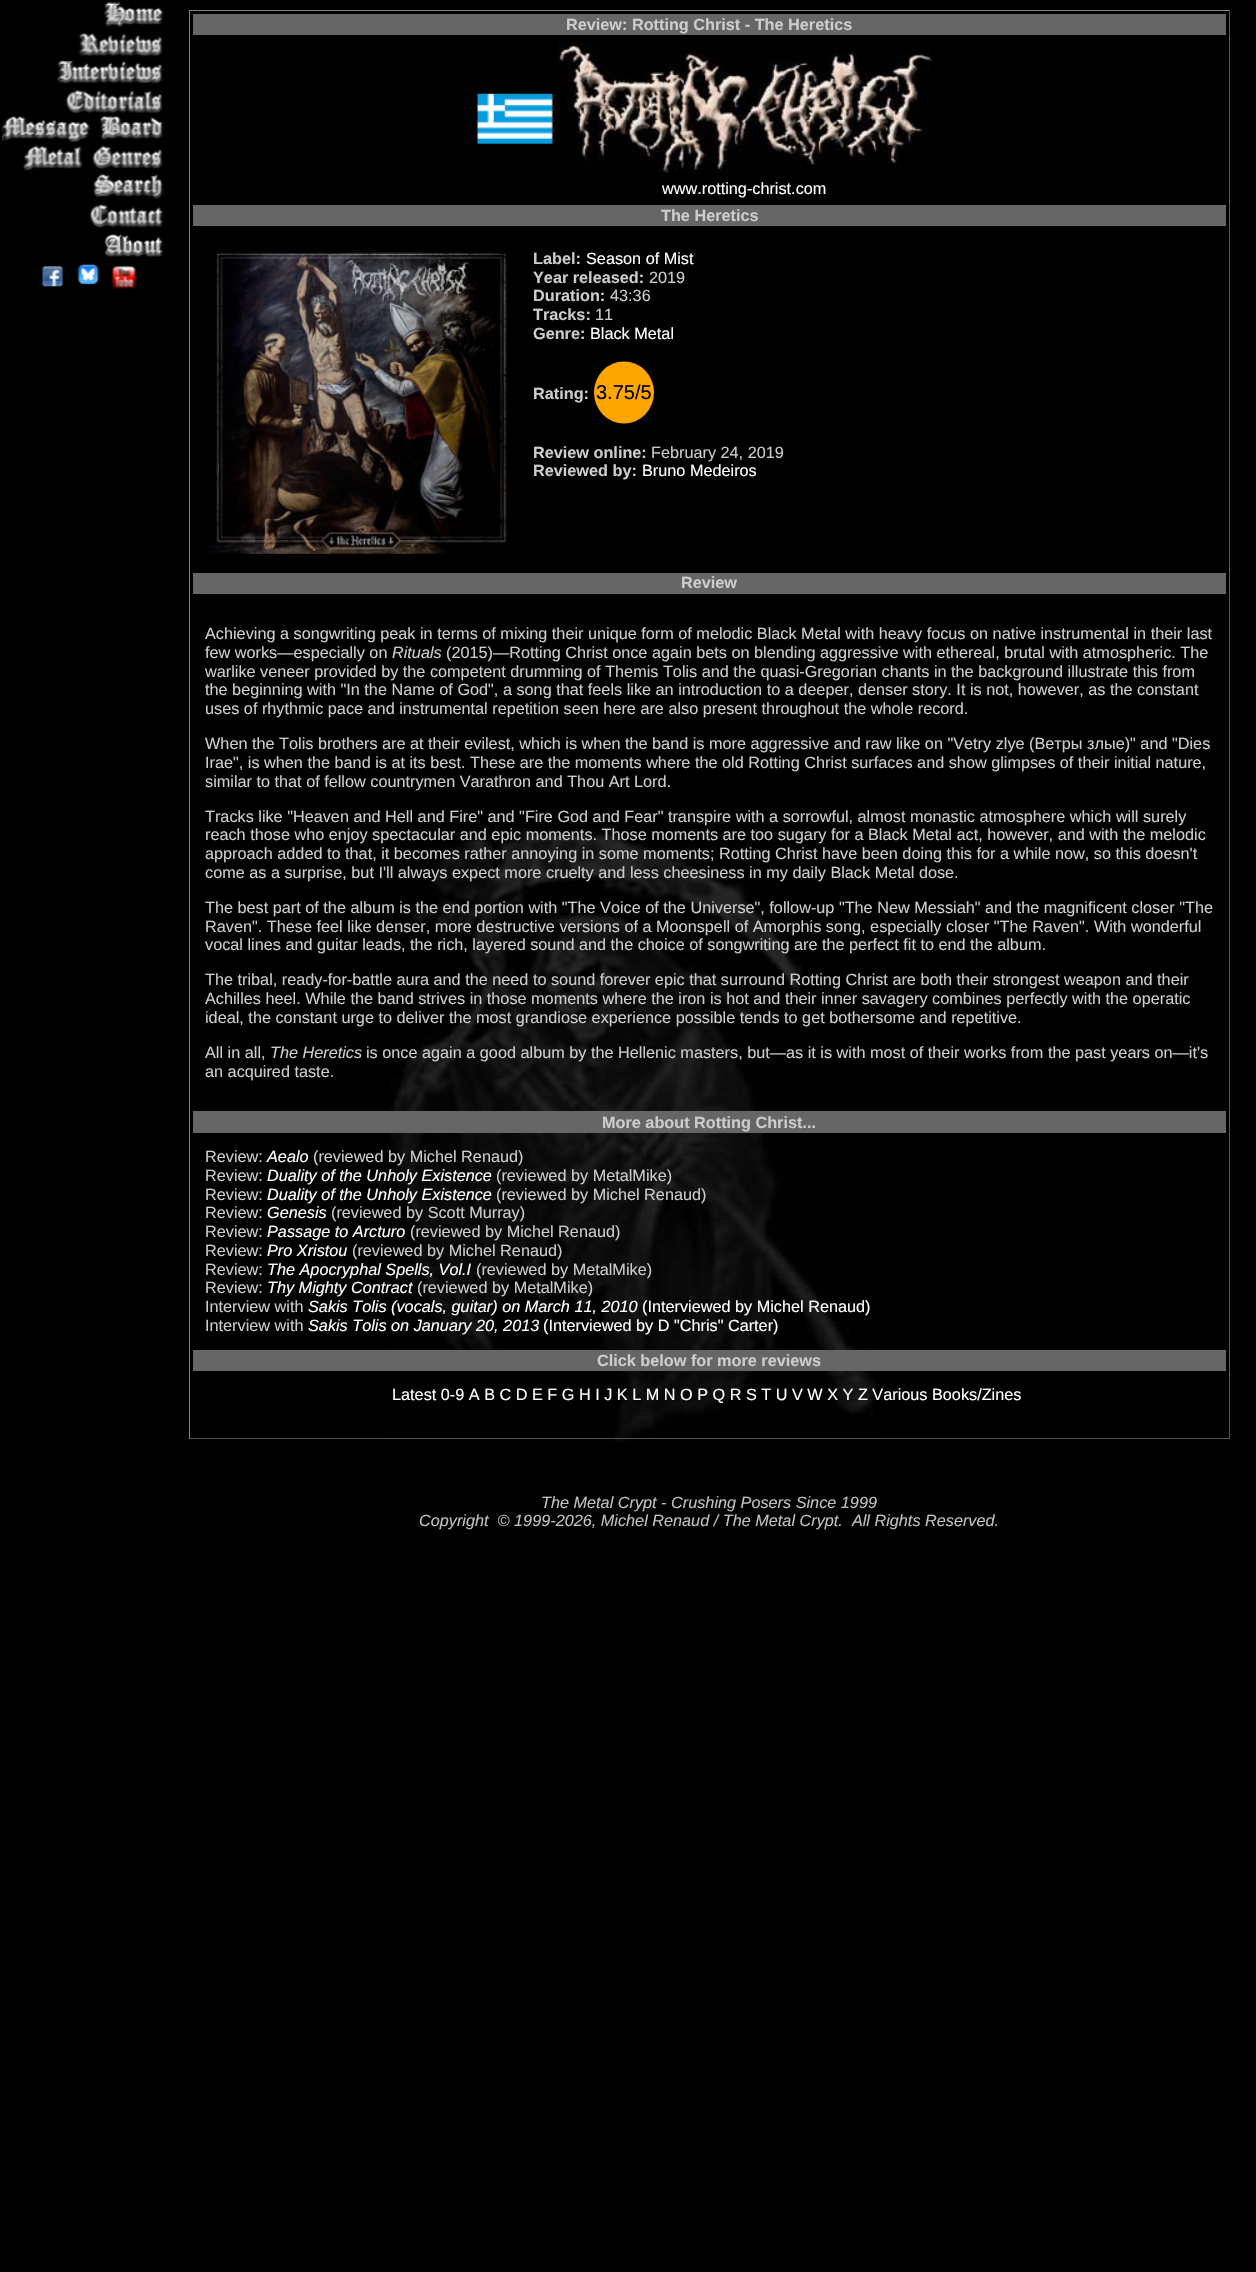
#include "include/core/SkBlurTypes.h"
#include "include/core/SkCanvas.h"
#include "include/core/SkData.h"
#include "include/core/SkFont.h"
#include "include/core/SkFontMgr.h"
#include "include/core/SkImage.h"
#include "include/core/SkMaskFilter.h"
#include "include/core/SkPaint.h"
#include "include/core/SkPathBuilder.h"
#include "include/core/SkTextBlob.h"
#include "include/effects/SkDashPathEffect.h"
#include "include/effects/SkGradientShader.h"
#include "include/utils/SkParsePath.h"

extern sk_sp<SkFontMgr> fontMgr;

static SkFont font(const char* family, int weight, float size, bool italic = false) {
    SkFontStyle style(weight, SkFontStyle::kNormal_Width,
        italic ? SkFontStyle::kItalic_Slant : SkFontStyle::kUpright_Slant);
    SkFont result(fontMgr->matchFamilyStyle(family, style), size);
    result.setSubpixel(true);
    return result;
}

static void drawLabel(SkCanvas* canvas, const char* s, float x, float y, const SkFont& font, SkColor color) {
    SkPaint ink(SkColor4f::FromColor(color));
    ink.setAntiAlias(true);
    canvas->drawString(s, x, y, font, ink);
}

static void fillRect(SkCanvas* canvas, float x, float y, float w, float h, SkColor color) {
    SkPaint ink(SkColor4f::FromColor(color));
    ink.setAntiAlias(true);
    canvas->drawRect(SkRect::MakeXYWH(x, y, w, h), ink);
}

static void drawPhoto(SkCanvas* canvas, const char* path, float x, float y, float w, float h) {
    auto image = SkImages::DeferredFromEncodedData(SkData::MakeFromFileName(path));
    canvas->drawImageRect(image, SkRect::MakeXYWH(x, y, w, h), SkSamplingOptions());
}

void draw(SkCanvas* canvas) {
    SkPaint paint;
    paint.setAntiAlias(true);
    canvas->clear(0xFF000000);
    drawPhoto(canvas, "assets/img1.png", 389, 827, 488, 617);
    drawPhoto(canvas, "assets/img2.png", 104, 2, 59, 1);
    drawPhoto(canvas, "assets/img3.png", 104, 3, 60, 25);
    drawPhoto(canvas, "assets/img4.png", 78, 31, 85, 26);
    drawPhoto(canvas, "assets/img5.png", 57, 60, 105, 1);
    drawPhoto(canvas, "assets/img6.png", 57, 61, 106, 23);
    drawPhoto(canvas, "assets/img7.png", 65, 88, 98, 26);
    drawPhoto(canvas, "assets/img8.png", 2, 118, 1, 24);
    drawPhoto(canvas, "assets/img9.png", 2, 116, 162, 27);
    drawPhoto(canvas, "assets/img10.png", 23, 145, 140, 26);
    drawPhoto(canvas, "assets/img11.png", 93, 173, 71, 26);
    drawPhoto(canvas, "assets/img12.png", 89, 204, 75, 24);
    drawPhoto(canvas, "assets/img13.png", 104, 233, 60, 24);
    drawPhoto(canvas, "assets/img14.png", 41, 266, 23, 21);
    drawPhoto(canvas, "assets/img15.png", 77, 263, 23, 22);
    drawPhoto(canvas, "assets/img16.png", 111, 265, 26, 24);
    fillRect(canvas, 189, 10, 1041, 1, 0xFF808080);
    fillRect(canvas, 1229, 10, 1, 1429, 0xFF555555);
    fillRect(canvas, 189, 1438, 1041, 1, 0xFF555555);
    fillRect(canvas, 189, 10, 1, 1429, 0xFF808080);
    fillRect(canvas, 193, 14, 1033, 21, 0xFF666666);
    SkFont font1 = font("Liberation Sans", 700, 16.25f);
    drawLabel(canvas, "Review: Rotting Christ - The Heretics", 566, 30, font1, 0xFFCCCCCC);
    drawPhoto(canvas, "assets/img17.png", 477, 93, 76, 51);
    drawPhoto(canvas, "assets/img18.png", 557, 42, 376, 131);
    SkFont font2 = font("Liberation Sans", 400, 16.25f);
    drawLabel(canvas, "www.rotting-christ.com", 662, 194, font2, 0xFFFFFFFF);
    fillRect(canvas, 193, 205, 1033, 21, 0xFF666666);
    drawLabel(canvas, "The Heretics", 661, 221, font1, 0xFFCCCCCC);
    drawPhoto(canvas, "assets/img19.png", 207, 252, 300, 302);
    drawLabel(canvas, "Label:", 533, 264, font1, 0xFFCCCCCC);
    drawLabel(canvas, "Season of Mist", 586, 264, font2, 0xFFFFFFFF);
    drawLabel(canvas, "Year released:", 533, 283, font1, 0xFFCCCCCC);
    drawLabel(canvas, "2019", 649, 283, font2, 0xFFCCCCCC);
    drawLabel(canvas, "Duration:", 533, 301, font1, 0xFFCCCCCC);
    drawLabel(canvas, "43:36", 610, 301, font2, 0xFFCCCCCC);
    drawLabel(canvas, "Tracks:", 533, 320, font1, 0xFFCCCCCC);
    drawLabel(canvas, "11", 595, 320, font2, 0xFFCCCCCC);
    drawLabel(canvas, "Genre:", 533, 339, font1, 0xFFCCCCCC);
    drawLabel(canvas, "Black Metal", 590, 339, font2, 0xFFFFFFFF);
    drawLabel(canvas, "Rating:", 533, 399, font1, 0xFFCCCCCC);
    paint.setColor(0xFFFFA500);
    canvas->drawOval(SkRect::MakeXYWH(594, 361.5f, 60, 62), paint);
    SkFont font3 = font("Liberation Sans", 400, 20);
    drawLabel(canvas, "3.75/5", 596, 399, font3, 0xFF000000);
    drawLabel(canvas, "Review online:", 533, 458, font1, 0xFFCCCCCC);
    drawLabel(canvas, "February 24, 2019", 651, 458, font2, 0xFFCCCCCC);
    drawLabel(canvas, "Reviewed by:", 533, 476, font1, 0xFFCCCCCC);
    drawLabel(canvas, "Bruno Medeiros", 642, 476, font2, 0xFFFFFFFF);
    fillRect(canvas, 193, 573, 1033, 21, 0xFF666666);
    drawLabel(canvas, "Review", 681, 588, font1, 0xFFCCCCCC);
    drawLabel(canvas, "Achieving a songwriting peak in terms of mixing their unique form of melodic Black Metal with heavy focus on native instrumental in their last", 205, 639, font2, 0xFFCCCCCC);
    drawLabel(canvas, "few works—especially on", 205, 658, font2, 0xFFCCCCCC);
    SkFont font4 = font("Liberation Sans", 400, 16.25f, true);
    drawLabel(canvas, "Rituals", 392, 658, font4, 0xFFCCCCCC);
    drawLabel(canvas, "(2015)—Rotting Christ once again bets on blending aggressive with ethereal, brutal with atmospheric. The", 446, 658, font2, 0xFFCCCCCC);
    drawLabel(canvas, "warlike veneer provided by the competent drumming of Themis Tolis and the quasi-Gregorian chants in the background illustrate this from", 205, 677, font2, 0xFFCCCCCC);
    drawLabel(canvas, "the beginning with \"In the Name of God\", a song that feels like an introduction to a deeper, denser story. It is not, however, as the constant", 205, 695, font2, 0xFFCCCCCC);
    drawLabel(canvas, "uses of rhythmic pace and instrumental repetition seen here are also present throughout the whole record.", 205, 714, font2, 0xFFCCCCCC);
    drawLabel(canvas, "When the Tolis brothers are at their evilest, which is when the band is more aggressive and raw like on \"Vetry zlye (Ветры злые)\" and \"Dies", 205, 749, font2, 0xFFCCCCCC);
    drawLabel(canvas, "Irae\", is when the band is at its best. These are the moments where the old Rotting Christ surfaces and show glimpses of their initial nature,", 205, 768, font2, 0xFFCCCCCC);
    drawLabel(canvas, "similar to that of fellow countrymen Varathron and Thou Art Lord.", 205, 787, font2, 0xFFCCCCCC);
    drawLabel(canvas, "Tracks like \"Heaven and Hell and Fire\" and \"Fire God and Fear\" transpire with a sorrowful, almost monastic atmosphere which will surely", 205, 822, font2, 0xFFCCCCCC);
    drawLabel(canvas, "reach those who enjoy spectacular and epic moments. Those moments are too sugary for a Black Metal act, however, and with the melodic", 205, 840, font2, 0xFFCCCCCC);
    drawLabel(canvas, "approach added to that, it becomes rather annoying in some moments; Rotting Christ have been doing this for a while now, so this doesn't", 205, 859, font2, 0xFFCCCCCC);
    drawLabel(canvas, "come as a surprise, but I'll always expect more cruelty and less cheesiness in my daily Black Metal dose.", 205, 878, font2, 0xFFCCCCCC);
    drawLabel(canvas, "The best part of the album is the end portion with \"The Voice of the Universe\", follow-up \"The New Messiah\" and the magnificent closer \"The", 205, 913, font2, 0xFFCCCCCC);
    drawLabel(canvas, "Raven\". These feel like denser, more destructive versions of a Moonspell of Amorphis song, especially closer \"The Raven\". With wonderful", 205, 932, font2, 0xFFCCCCCC);
    drawLabel(canvas, "vocal lines and guitar leads, the rich, layered sound and the choice of songwriting are the perfect fit to end the album.", 205, 950, font2, 0xFFCCCCCC);
    drawLabel(canvas, "The tribal, ready-for-battle aura and the need to sound forever epic that surround Rotting Christ are both their strongest weapon and their", 205, 985, font2, 0xFFCCCCCC);
    drawLabel(canvas, "Achilles heel. While the band strives in those moments where the iron is hot and their inner savagery combines perfectly with the operatic", 205, 1004, font2, 0xFFCCCCCC);
    drawLabel(canvas, "ideal, the constant urge to deliver the most grandiose experience possible tends to get bothersome and repetitive.", 205, 1023, font2, 0xFFCCCCCC);
    drawLabel(canvas, "All in all,", 205, 1058, font2, 0xFFCCCCCC);
    drawLabel(canvas, "The Heretics", 270, 1058, font4, 0xFFCCCCCC);
    drawLabel(canvas, "is once again a good album by the Hellenic masters, but—as it is with most of their works from the past years on—it's", 366, 1058, font2, 0xFFCCCCCC);
    drawLabel(canvas, "an acquired taste.", 205, 1077, font2, 0xFFCCCCCC);
    fillRect(canvas, 193, 1111, 1033, 22, 0xFF666666);
    drawLabel(canvas, "More about Rotting Christ...", 602, 1128, font1, 0xFFCCCCCC);
    drawLabel(canvas, "Review:", 205, 1162, font2, 0xFFCCCCCC);
    drawLabel(canvas, "Aealo", 267, 1162, font4, 0xFFFFFFFF);
    drawLabel(canvas, "(reviewed by Michel Renaud)", 313, 1162, font2, 0xFFCCCCCC);
    drawLabel(canvas, "Review:", 205, 1181, font2, 0xFFCCCCCC);
    drawLabel(canvas, "Duality of the Unholy Existence", 267, 1181, font4, 0xFFFFFFFF);
    drawLabel(canvas, "(reviewed by MetalMike)", 496, 1181, font2, 0xFFCCCCCC);
    drawLabel(canvas, "Review:", 205, 1200, font2, 0xFFCCCCCC);
    drawLabel(canvas, "Duality of the Unholy Existence", 267, 1200, font4, 0xFFFFFFFF);
    drawLabel(canvas, "(reviewed by Michel Renaud)", 496, 1200, font2, 0xFFCCCCCC);
    drawLabel(canvas, "Review:", 205, 1218, font2, 0xFFCCCCCC);
    drawLabel(canvas, "Genesis", 267, 1218, font4, 0xFFFFFFFF);
    drawLabel(canvas, "(reviewed by Scott Murray)", 331, 1218, font2, 0xFFCCCCCC);
    drawLabel(canvas, "Review:", 205, 1237, font2, 0xFFCCCCCC);
    drawLabel(canvas, "Passage to Arcturo", 267, 1237, font4, 0xFFFFFFFF);
    drawLabel(canvas, "(reviewed by Michel Renaud)", 410, 1237, font2, 0xFFCCCCCC);
    drawLabel(canvas, "Review:", 205, 1256, font2, 0xFFCCCCCC);
    drawLabel(canvas, "Pro Xristou", 267, 1256, font4, 0xFFFFFFFF);
    drawLabel(canvas, "(reviewed by Michel Renaud)", 352, 1256, font2, 0xFFCCCCCC);
    drawLabel(canvas, "Review:", 205, 1275, font2, 0xFFCCCCCC);
    drawLabel(canvas, "The Apocryphal Spells, Vol.I", 267, 1275, font4, 0xFFFFFFFF);
    drawLabel(canvas, "(reviewed by MetalMike)", 476, 1275, font2, 0xFFCCCCCC);
    drawLabel(canvas, "Review:", 205, 1293, font2, 0xFFCCCCCC);
    drawLabel(canvas, "Thy Mighty Contract", 267, 1293, font4, 0xFFFFFFFF);
    drawLabel(canvas, "(reviewed by MetalMike)", 417, 1293, font2, 0xFFCCCCCC);
    drawLabel(canvas, "Interview with", 205, 1312, font2, 0xFFCCCCCC);
    drawLabel(canvas, "Sakis Tolis (vocals, guitar) on March 11, 2010", 308, 1312, font4, 0xFFFFFFFF);
    drawLabel(canvas, "(Interviewed by Michel Renaud)", 642, 1312, font2, 0xFFFFFFFF);
    drawLabel(canvas, "Interview with", 205, 1331, font2, 0xFFCCCCCC);
    drawLabel(canvas, "Sakis Tolis on January 20, 2013", 308, 1331, font4, 0xFFFFFFFF);
    drawLabel(canvas, "(Interviewed by D \"Chris\" Carter)", 543, 1331, font2, 0xFFFFFFFF);
    fillRect(canvas, 193, 1350, 1033, 21, 0xFF666666);
    drawLabel(canvas, "Click below for more reviews", 597, 1366, font1, 0xFFCCCCCC);
    drawLabel(canvas, "Latest 0-9 A B C D E F G H I J K L M N O P Q R S T U V W X Y Z Various Books/Zines", 392, 1400, font2, 0xFFFFFFFF);
    drawLabel(canvas, "The Metal Crypt - Crushing Posers Since 1999", 541, 1508, font4, 0xFFC0C0C0);
    drawLabel(canvas, "Copyright  © 1999-2026, Michel Renaud / The Metal Crypt.  All Rights Reserved.", 419, 1526, font4, 0xFFC0C0C0);
}
